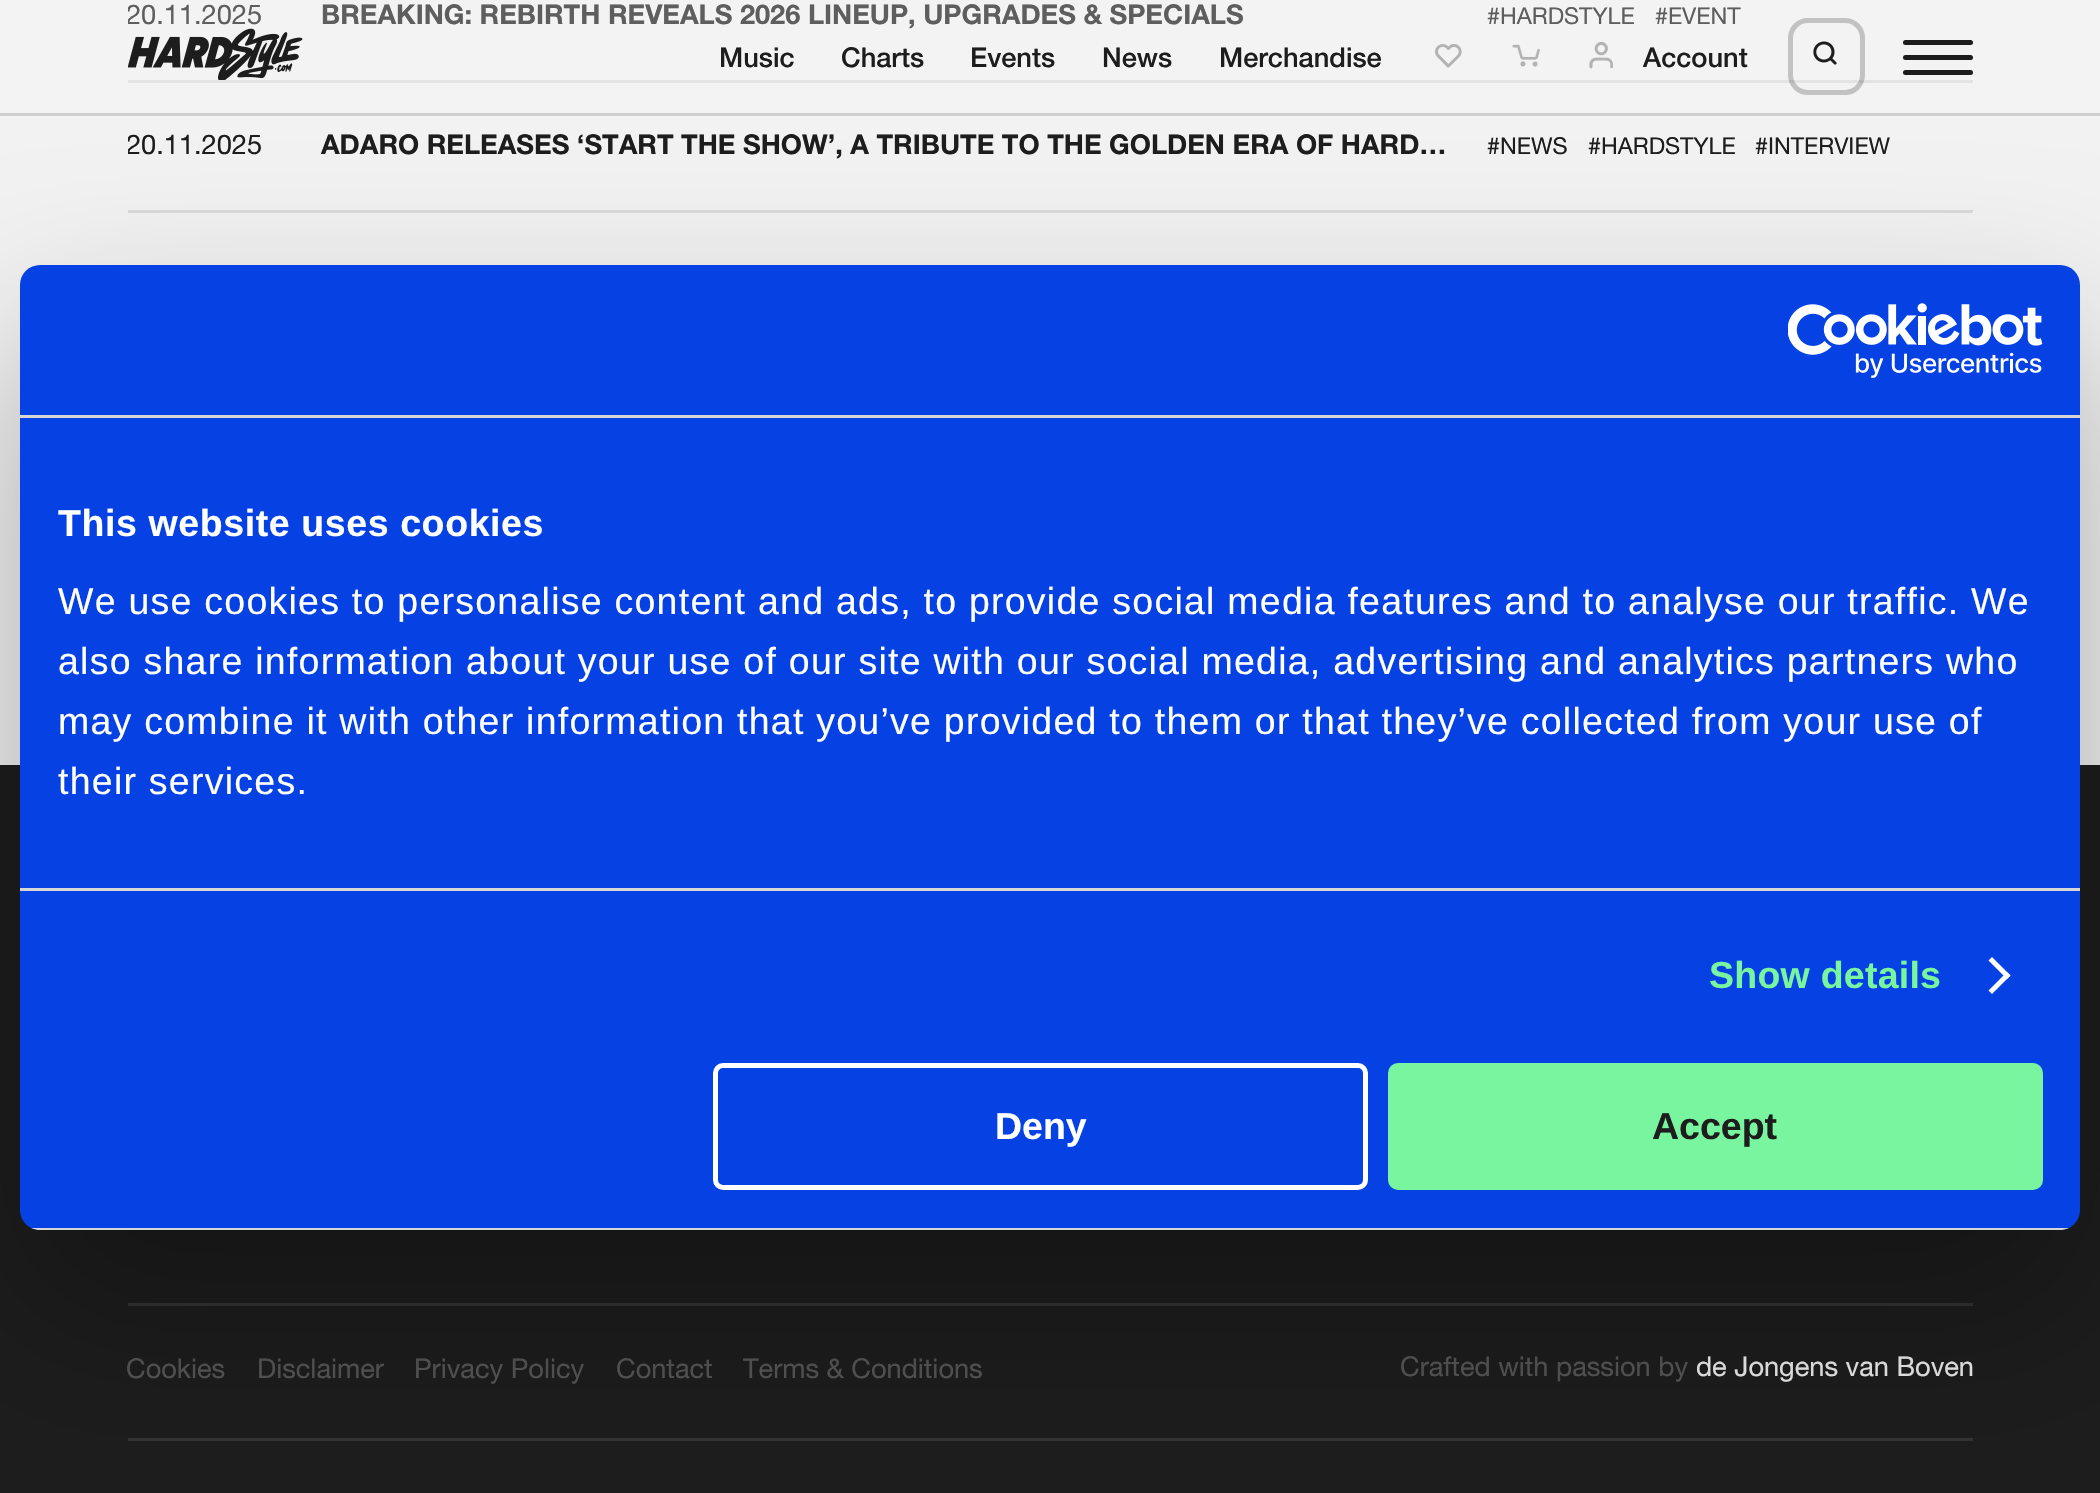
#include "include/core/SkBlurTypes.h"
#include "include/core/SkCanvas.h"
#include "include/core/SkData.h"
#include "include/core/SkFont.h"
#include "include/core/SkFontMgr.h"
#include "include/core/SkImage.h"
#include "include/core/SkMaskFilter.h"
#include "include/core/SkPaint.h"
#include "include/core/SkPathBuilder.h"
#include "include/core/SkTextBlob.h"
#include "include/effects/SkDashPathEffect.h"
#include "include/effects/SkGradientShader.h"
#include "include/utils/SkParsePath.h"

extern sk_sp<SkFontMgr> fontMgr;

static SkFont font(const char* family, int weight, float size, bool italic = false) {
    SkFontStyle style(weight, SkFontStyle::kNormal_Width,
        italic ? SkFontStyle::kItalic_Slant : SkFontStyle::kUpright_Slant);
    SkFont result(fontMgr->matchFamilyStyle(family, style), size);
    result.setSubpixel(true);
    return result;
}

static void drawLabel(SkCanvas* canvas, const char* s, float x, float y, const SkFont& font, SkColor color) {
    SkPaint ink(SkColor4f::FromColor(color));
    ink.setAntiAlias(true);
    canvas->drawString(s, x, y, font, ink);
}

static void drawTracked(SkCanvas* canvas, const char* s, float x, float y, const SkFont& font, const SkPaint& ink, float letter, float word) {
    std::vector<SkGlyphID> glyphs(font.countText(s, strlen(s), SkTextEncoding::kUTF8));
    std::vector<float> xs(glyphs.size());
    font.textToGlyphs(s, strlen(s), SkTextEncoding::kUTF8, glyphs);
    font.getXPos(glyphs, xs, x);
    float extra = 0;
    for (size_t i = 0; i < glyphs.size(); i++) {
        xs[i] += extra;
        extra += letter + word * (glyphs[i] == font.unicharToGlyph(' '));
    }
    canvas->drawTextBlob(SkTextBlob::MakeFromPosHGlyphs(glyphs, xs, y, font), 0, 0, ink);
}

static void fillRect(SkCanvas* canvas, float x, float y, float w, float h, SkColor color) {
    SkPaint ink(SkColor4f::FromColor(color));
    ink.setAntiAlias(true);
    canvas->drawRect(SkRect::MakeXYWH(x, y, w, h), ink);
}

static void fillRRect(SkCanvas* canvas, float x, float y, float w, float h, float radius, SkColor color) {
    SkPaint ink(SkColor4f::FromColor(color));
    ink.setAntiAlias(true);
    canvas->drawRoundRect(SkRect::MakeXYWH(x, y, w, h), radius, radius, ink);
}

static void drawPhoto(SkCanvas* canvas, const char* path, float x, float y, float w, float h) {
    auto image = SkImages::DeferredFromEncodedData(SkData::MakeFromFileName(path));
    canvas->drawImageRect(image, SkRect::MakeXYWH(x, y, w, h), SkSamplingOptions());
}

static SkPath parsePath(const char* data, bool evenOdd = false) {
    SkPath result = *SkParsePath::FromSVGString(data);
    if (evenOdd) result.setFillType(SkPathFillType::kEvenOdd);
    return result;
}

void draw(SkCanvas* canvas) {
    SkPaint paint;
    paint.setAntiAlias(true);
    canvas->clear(0xFF1D1D1D);
    fillRect(canvas, 0, 118, 2100, 647, 0xFFF2F2F2);
    fillRect(canvas, 0, 0, 2100, 118, 0xFFF3F3F3);
    canvas->save();
    canvas->clipRect(SkRect::MakeXYWH(128, 0, 192, 38));
    SkFont font1 = font("Helvetica Neue", 400, 27.2f);
    drawLabel(canvas, "20.11.2025", 126, 24, font1, 0xFF5E5E5E);
    canvas->restore();
    SkFont font2 = font("Helvetica Neue", 700, 27.2f);
    drawLabel(canvas, "BREAKING: REBIRTH REVEALS 2026 LINEUP, UPGRADES & SPECIALS", 321, 24, font2, 0xFF5E5E5E);
    SkFont font3 = font("Helvetica Neue", 400, 23.25f);
    drawLabel(canvas, "#HARDSTYLE", 1487, 24, font3, 0xFF5E5E5E);
    drawLabel(canvas, "#EVENT", 1655, 24, font3, 0xFF5E5E5E);
    fillRect(canvas, 128, 80, 1845, 3, 0xFFE3E3E3);
    canvas->save();
    canvas->clipRect(SkRect::MakeXYWH(128, 123, 192, 45));
    drawLabel(canvas, "20.11.2025", 126, 154, font1, 0xFF1D1D1D);
    canvas->restore();
    drawLabel(canvas, "ADARO RELEASES ‘START THE SHOW’, A TRIBUTE TO THE GOLDEN ERA OF HARD…", 321, 154, font2, 0xFF1D1D1D);
    drawLabel(canvas, "#NEWS", 1487, 154, font3, 0xFF1D1D1D);
    drawLabel(canvas, "#HARDSTYLE", 1588, 154, font3, 0xFF1D1D1D);
    drawLabel(canvas, "#INTERVIEW", 1755, 154, font3, 0xFF1D1D1D);
    fillRect(canvas, 128, 210, 1845, 3, 0xFFDADADA);
    fillRect(canvas, 128, 1303, 1845, 3, 0xFF343434);
    fillRect(canvas, 128, 1438, 1845, 3, 0xFF343434);
    drawLabel(canvas, "Cookies", 126, 1378, font1, 0xFF555555);
    drawLabel(canvas, "Disclaimer", 257, 1378, font1, 0xFF555555);
    drawLabel(canvas, "Privacy Policy", 414, 1378, font1, 0xFF555555);
    drawLabel(canvas, "Contact", 616, 1378, font1, 0xFF555555);
    drawLabel(canvas, "Terms & Conditions", 743, 1378, font1, 0xFF555555);
    drawLabel(canvas, "Crafted with passion by", 1400, 1376, font1, 0xFF555555);
    drawLabel(canvas, "de Jongens van Boven", 1696, 1376, font1, 0xFFEBEBEB);
    fillRect(canvas, 0, 113, 2100, 3, 0xFFCFCFCF);
    drawPhoto(canvas, "assets/img1.png", 128, 28, 175, 52);
    SkFont font4 = font("Helvetica Neue", 500, 27.2f);
    drawLabel(canvas, "Music", 719, 67, font4, 0xFF1D1D1D);
    drawLabel(canvas, "Charts", 841, 67, font4, 0xFF1D1D1D);
    drawLabel(canvas, "Events", 970, 67, font4, 0xFF1D1D1D);
    drawLabel(canvas, "News", 1102, 67, font4, 0xFF1D1D1D);
    drawLabel(canvas, "Merchandise", 1219, 67, font4, 0xFF1D1D1D);
    drawPhoto(canvas, "assets/img2.png", 1435, 44, 27, 24);
    drawPhoto(canvas, "assets/img3.png", 1512, 44, 28, 23);
    drawPhoto(canvas, "assets/img4.png", 1589, 41, 24, 28);
    drawLabel(canvas, "Account", 1643, 67, font4, 0xFF1D1D1D);
    paint.setStroke(true);
    paint.setStrokeWidth(5);
    paint.setColor(0x33000000);
    canvas->drawRoundRect(SkRect::MakeXYWH(1790.5f, 20.5f, 72, 72), 17.5f, 17.5f, paint);
    drawPhoto(canvas, "assets/img5.png", 1813, 41, 24, 24);
    fillRRect(canvas, 1903, 40, 70, 5, 2.5f, 0xFF1D1D1D);
    fillRRect(canvas, 1903, 55, 70, 5, 2.5f, 0xFF1D1D1D);
    fillRRect(canvas, 1903, 70, 70, 5, 2.5f, 0xFF1D1D1D);
    paint.setStroke(false);
    paint.setColor(0x4D000000);
    paint.setMaskFilter(SkMaskFilter::MakeBlur(kNormal_SkBlurStyle, 85));
    canvas->drawRoundRect(SkRect::MakeXYWH(20, 345, 2060, 965), 20, 20, paint);
    paint.setMaskFilter(nullptr);
    fillRRect(canvas, 20, 265, 2060, 965, 20, 0xFF0541E3);
    fillRect(canvas, 20, 415, 2060, 3, 0xFFD6D6D6);
    drawPhoto(canvas, "assets/img6.png", 1788, 303, 255, 75);
    fillRect(canvas, 20, 888, 2060, 3, 0xFFD6D6D6);
    SkFont font5 = font("Liberation Sans", 700, 37.5f);
    paint.setColor(0xFFFFFFFF);
    drawTracked(canvas, "This website uses cookies", 58, 536, font5, paint, 0.6f, 0);
    SkFont font6 = font("Liberation Sans", 400, 37.5f);
    drawTracked(canvas, "We use cookies to personalise content and ads, to provide social media features and to analyse our traffic. We", 58, 614, font6, paint, 1.25f, 0);
    drawTracked(canvas, "also share information about your use of our site with our social media, advertising and analytics partners who", 58, 674, font6, paint, 1.25f, 0);
    drawTracked(canvas, "may combine it with other information that you’ve provided to them or that they’ve collected from your use of", 58, 734, font6, paint, 1.25f, 0);
    drawTracked(canvas, "their services.", 58, 794, font6, paint, 1.25f, 0);
    paint.setColor(0xFF78F59E);
    drawTracked(canvas, "Show details", 1709, 988, font5, paint, 0.25f, 0);
    paint.setColor(0xFFFFFFFF);
    canvas->drawPath(parsePath("M1992 957L2010.5 975.5L2007 979L1988.5 960.5Z"), paint);
    canvas->drawPath(parsePath("M2007 972L2010.5 975.5L1992 994L1988.5 990.5Z"), paint);
    canvas->save();
    canvas->clipPath(parsePath("M40 265H2060C2071 265 2080 274 2080 285V1210C2080 1221 2071 1230 2060 1230H40C29 1230 20 1221 20 1210V285C20 274 29 265 40 265Z"), true);
    fillRect(canvas, 31, 1228, 2038, 2, 0xFFD6D6D6);
    canvas->restore();
    paint.setStroke(true);
    canvas->drawRoundRect(SkRect::MakeXYWH(715.5f, 1065.5f, 650, 122), 7.5f, 7.5f, paint);
    drawLabel(canvas, "Deny", 995, 1139, font5, 0xFFFFFFFF);
    paint.setStroke(false);
    paint.setColor(0xFF78F59E);
    canvas->drawRoundRect(SkRect::MakeXYWH(1390.5f, 1065.5f, 650, 122), 7.5f, 7.5f, paint);
    paint.setStroke(true);
    canvas->drawRoundRect(SkRect::MakeXYWH(1390.5f, 1065.5f, 650, 122), 7.5f, 7.5f, paint);
    drawLabel(canvas, "Accept", 1652, 1139, font5, 0xFF1D1D1D);
}
